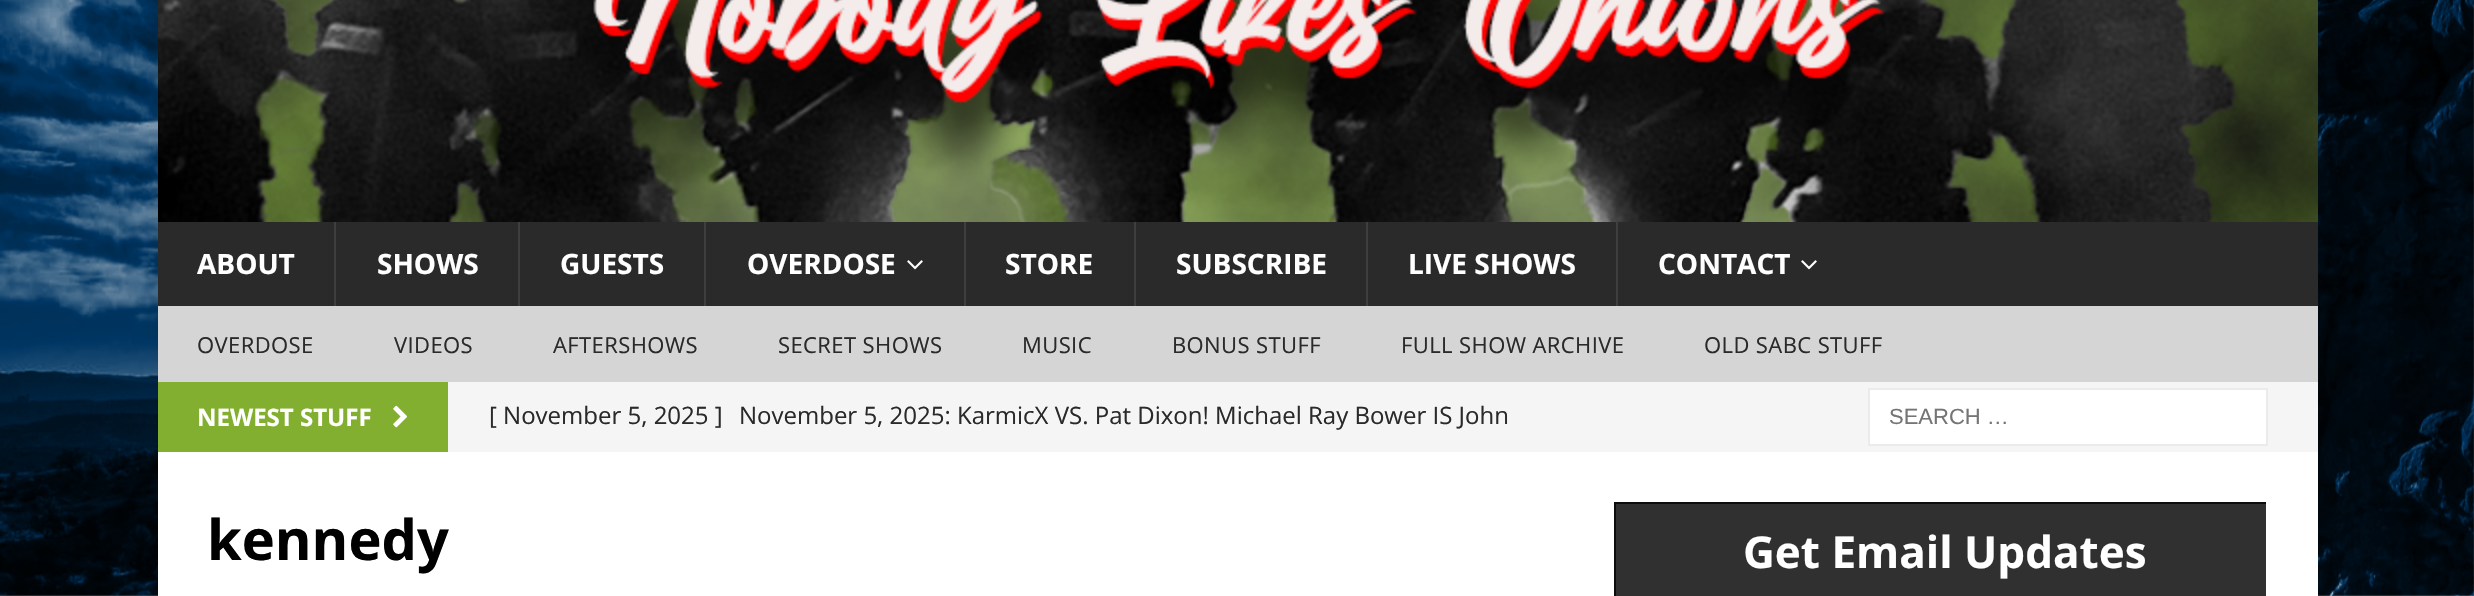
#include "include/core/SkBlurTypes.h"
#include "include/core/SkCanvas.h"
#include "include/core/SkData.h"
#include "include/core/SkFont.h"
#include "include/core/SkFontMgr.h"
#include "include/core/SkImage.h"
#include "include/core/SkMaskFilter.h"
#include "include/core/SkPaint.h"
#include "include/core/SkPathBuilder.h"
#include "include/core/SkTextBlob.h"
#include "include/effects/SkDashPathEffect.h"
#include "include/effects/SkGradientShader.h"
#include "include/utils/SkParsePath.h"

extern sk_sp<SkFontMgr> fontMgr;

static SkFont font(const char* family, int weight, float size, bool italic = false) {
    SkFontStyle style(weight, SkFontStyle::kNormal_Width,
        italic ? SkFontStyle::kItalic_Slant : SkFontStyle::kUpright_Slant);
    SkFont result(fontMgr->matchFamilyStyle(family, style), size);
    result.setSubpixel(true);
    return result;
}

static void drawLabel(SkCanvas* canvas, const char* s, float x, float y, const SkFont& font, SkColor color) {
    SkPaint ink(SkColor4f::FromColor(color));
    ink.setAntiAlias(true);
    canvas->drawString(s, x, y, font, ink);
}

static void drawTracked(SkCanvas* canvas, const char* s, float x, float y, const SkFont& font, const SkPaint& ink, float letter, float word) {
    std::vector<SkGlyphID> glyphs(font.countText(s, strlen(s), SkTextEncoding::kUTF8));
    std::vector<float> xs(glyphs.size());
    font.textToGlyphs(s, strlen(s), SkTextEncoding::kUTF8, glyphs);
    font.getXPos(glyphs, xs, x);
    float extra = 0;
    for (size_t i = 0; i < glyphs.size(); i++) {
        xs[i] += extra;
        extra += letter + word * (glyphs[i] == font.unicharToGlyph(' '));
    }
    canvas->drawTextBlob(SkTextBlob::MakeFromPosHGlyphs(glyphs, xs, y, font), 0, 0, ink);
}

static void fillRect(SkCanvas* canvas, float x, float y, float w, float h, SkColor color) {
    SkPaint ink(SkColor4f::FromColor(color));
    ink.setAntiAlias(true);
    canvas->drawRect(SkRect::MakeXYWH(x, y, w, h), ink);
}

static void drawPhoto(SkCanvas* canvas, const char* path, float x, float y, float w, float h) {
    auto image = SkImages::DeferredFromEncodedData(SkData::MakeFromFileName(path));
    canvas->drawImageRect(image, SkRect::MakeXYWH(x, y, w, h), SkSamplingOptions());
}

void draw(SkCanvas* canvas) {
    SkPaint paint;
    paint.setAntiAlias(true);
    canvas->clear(0xFFFFFFFF);
    drawPhoto(canvas, "assets/img1.png", 0, 0, 2474, 596);
    drawPhoto(canvas, "assets/img2.png", 158, 0, 2160, 222);
    fillRect(canvas, 158, 222, 2160, 84, 0xFF2A2A2A);
    SkFont font1 = font("Open Sans", 700, 28);
    drawLabel(canvas, "ABOUT", 197, 274, font1, 0xFFFFFFFF);
    fillRect(canvas, 334, 222, 2, 84, 0xFF3F3F3F);
    drawLabel(canvas, "SHOWS", 377, 274, font1, 0xFFFFFFFF);
    fillRect(canvas, 518, 222, 2, 84, 0xFF3F3F3F);
    drawLabel(canvas, "GUESTS", 560, 274, font1, 0xFFFFFFFF);
    fillRect(canvas, 704, 222, 2, 84, 0xFF3F3F3F);
    drawLabel(canvas, "OVERDOSE", 747, 274, font1, 0xFFFFFFFF);
    drawPhoto(canvas, "assets/img3.png", 907, 260, 16, 10);
    fillRect(canvas, 964, 222, 2, 84, 0xFF3F3F3F);
    drawLabel(canvas, "STORE", 1005, 274, font1, 0xFFFFFFFF);
    fillRect(canvas, 1134, 222, 2, 84, 0xFF3F3F3F);
    drawLabel(canvas, "SUBSCRIBE", 1176, 274, font1, 0xFFFFFFFF);
    fillRect(canvas, 1366, 222, 2, 84, 0xFF3F3F3F);
    drawLabel(canvas, "LIVE SHOWS", 1408, 274, font1, 0xFFFFFFFF);
    fillRect(canvas, 1616, 222, 2, 84, 0xFF3F3F3F);
    drawLabel(canvas, "CONTACT", 1658, 274, font1, 0xFFFFFFFF);
    drawPhoto(canvas, "assets/img3.png", 1801, 260, 16, 10);
    fillRect(canvas, 158, 306, 2160, 76, 0xFFD5D5D5);
    SkFont font2 = font("Open Sans", 400, 22);
    paint.setColor(0xFF2A2A2A);
    drawTracked(canvas, "OVERDOSE", 197, 353, font2, paint, 0.4f, 0);
    drawTracked(canvas, "VIDEOS", 394, 353, font2, paint, 0.4f, 0);
    drawTracked(canvas, "AFTERSHOWS", 553, 353, font2, paint, 0.4f, 0);
    drawTracked(canvas, "SECRET SHOWS", 778, 353, font2, paint, 0.4f, 0);
    drawTracked(canvas, "MUSIC", 1022, 353, font2, paint, 0.4f, 0);
    drawTracked(canvas, "BONUS STUFF", 1172, 353, font2, paint, 0.4f, 0);
    drawTracked(canvas, "FULL SHOW ARCHIVE", 1401, 353, font2, paint, 0.4f, 0);
    drawTracked(canvas, "OLD SABC STUFF", 1704, 353, font2, paint, 0.4f, 0);
    fillRect(canvas, 448, 382, 1870, 70, 0xFFF5F5F5);
    fillRect(canvas, 158, 382, 290, 70, 0xFF83AF31);
    SkFont font3 = font("Open Sans", 700, 24);
    drawLabel(canvas, "NEWEST STUFF", 197, 426, font3, 0xFFFFFFFF);
    drawPhoto(canvas, "assets/img4.png", 393, 405, 14, 23);
    SkFont font4 = font("Open Sans", 400, 24);
    drawLabel(canvas, "[ November 5, 2025 ]", 489, 424, font4, 0xFF2A2A2A);
    drawLabel(canvas, "November 5, 2025: KarmicX VS. Pat Dixon! Michael Ray Bower IS John", 739, 424, font4, 0xFF2A2A2A);
    paint.setColor(0xFFFFFFFF);
    canvas->drawRect(SkRect::MakeXYWH(1869, 389, 398, 56), paint);
    paint.setStroke(true);
    paint.setStrokeWidth(2);
    paint.setColor(0xFFEBEBEB);
    canvas->drawRect(SkRect::MakeXYWH(1869, 389, 398, 56), paint);
    SkFont font5 = font("Liberation Sans", 400, 22);
    drawLabel(canvas, "SEARCH …", 1889, 424, font5, 0xFF757575);
    fillRect(canvas, 158, 452, 2160, 144, 0xFFFFFFFF);
    SkFont font6 = font("Open Sans", 700, 56);
    drawLabel(canvas, "kennedy", 207, 560, font6, 0xFF000000);
    fillRect(canvas, 1616, 504, 650, 92, 0xFF303030);
    canvas->save();
    canvas->clipRect(SkRect::MakeXYWH(1614, 502, 652, 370));
    paint.setColor(0xFF0C0C0C);
    canvas->drawRect(SkRect::MakeXYWH(1615, 503, 658, 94), paint);
    canvas->restore();
    SkFont font7 = font("Open Sans", 700, 44);
    drawLabel(canvas, "Get Email Updates", 1743, 568, font7, 0xFFFFFFFF);
}
